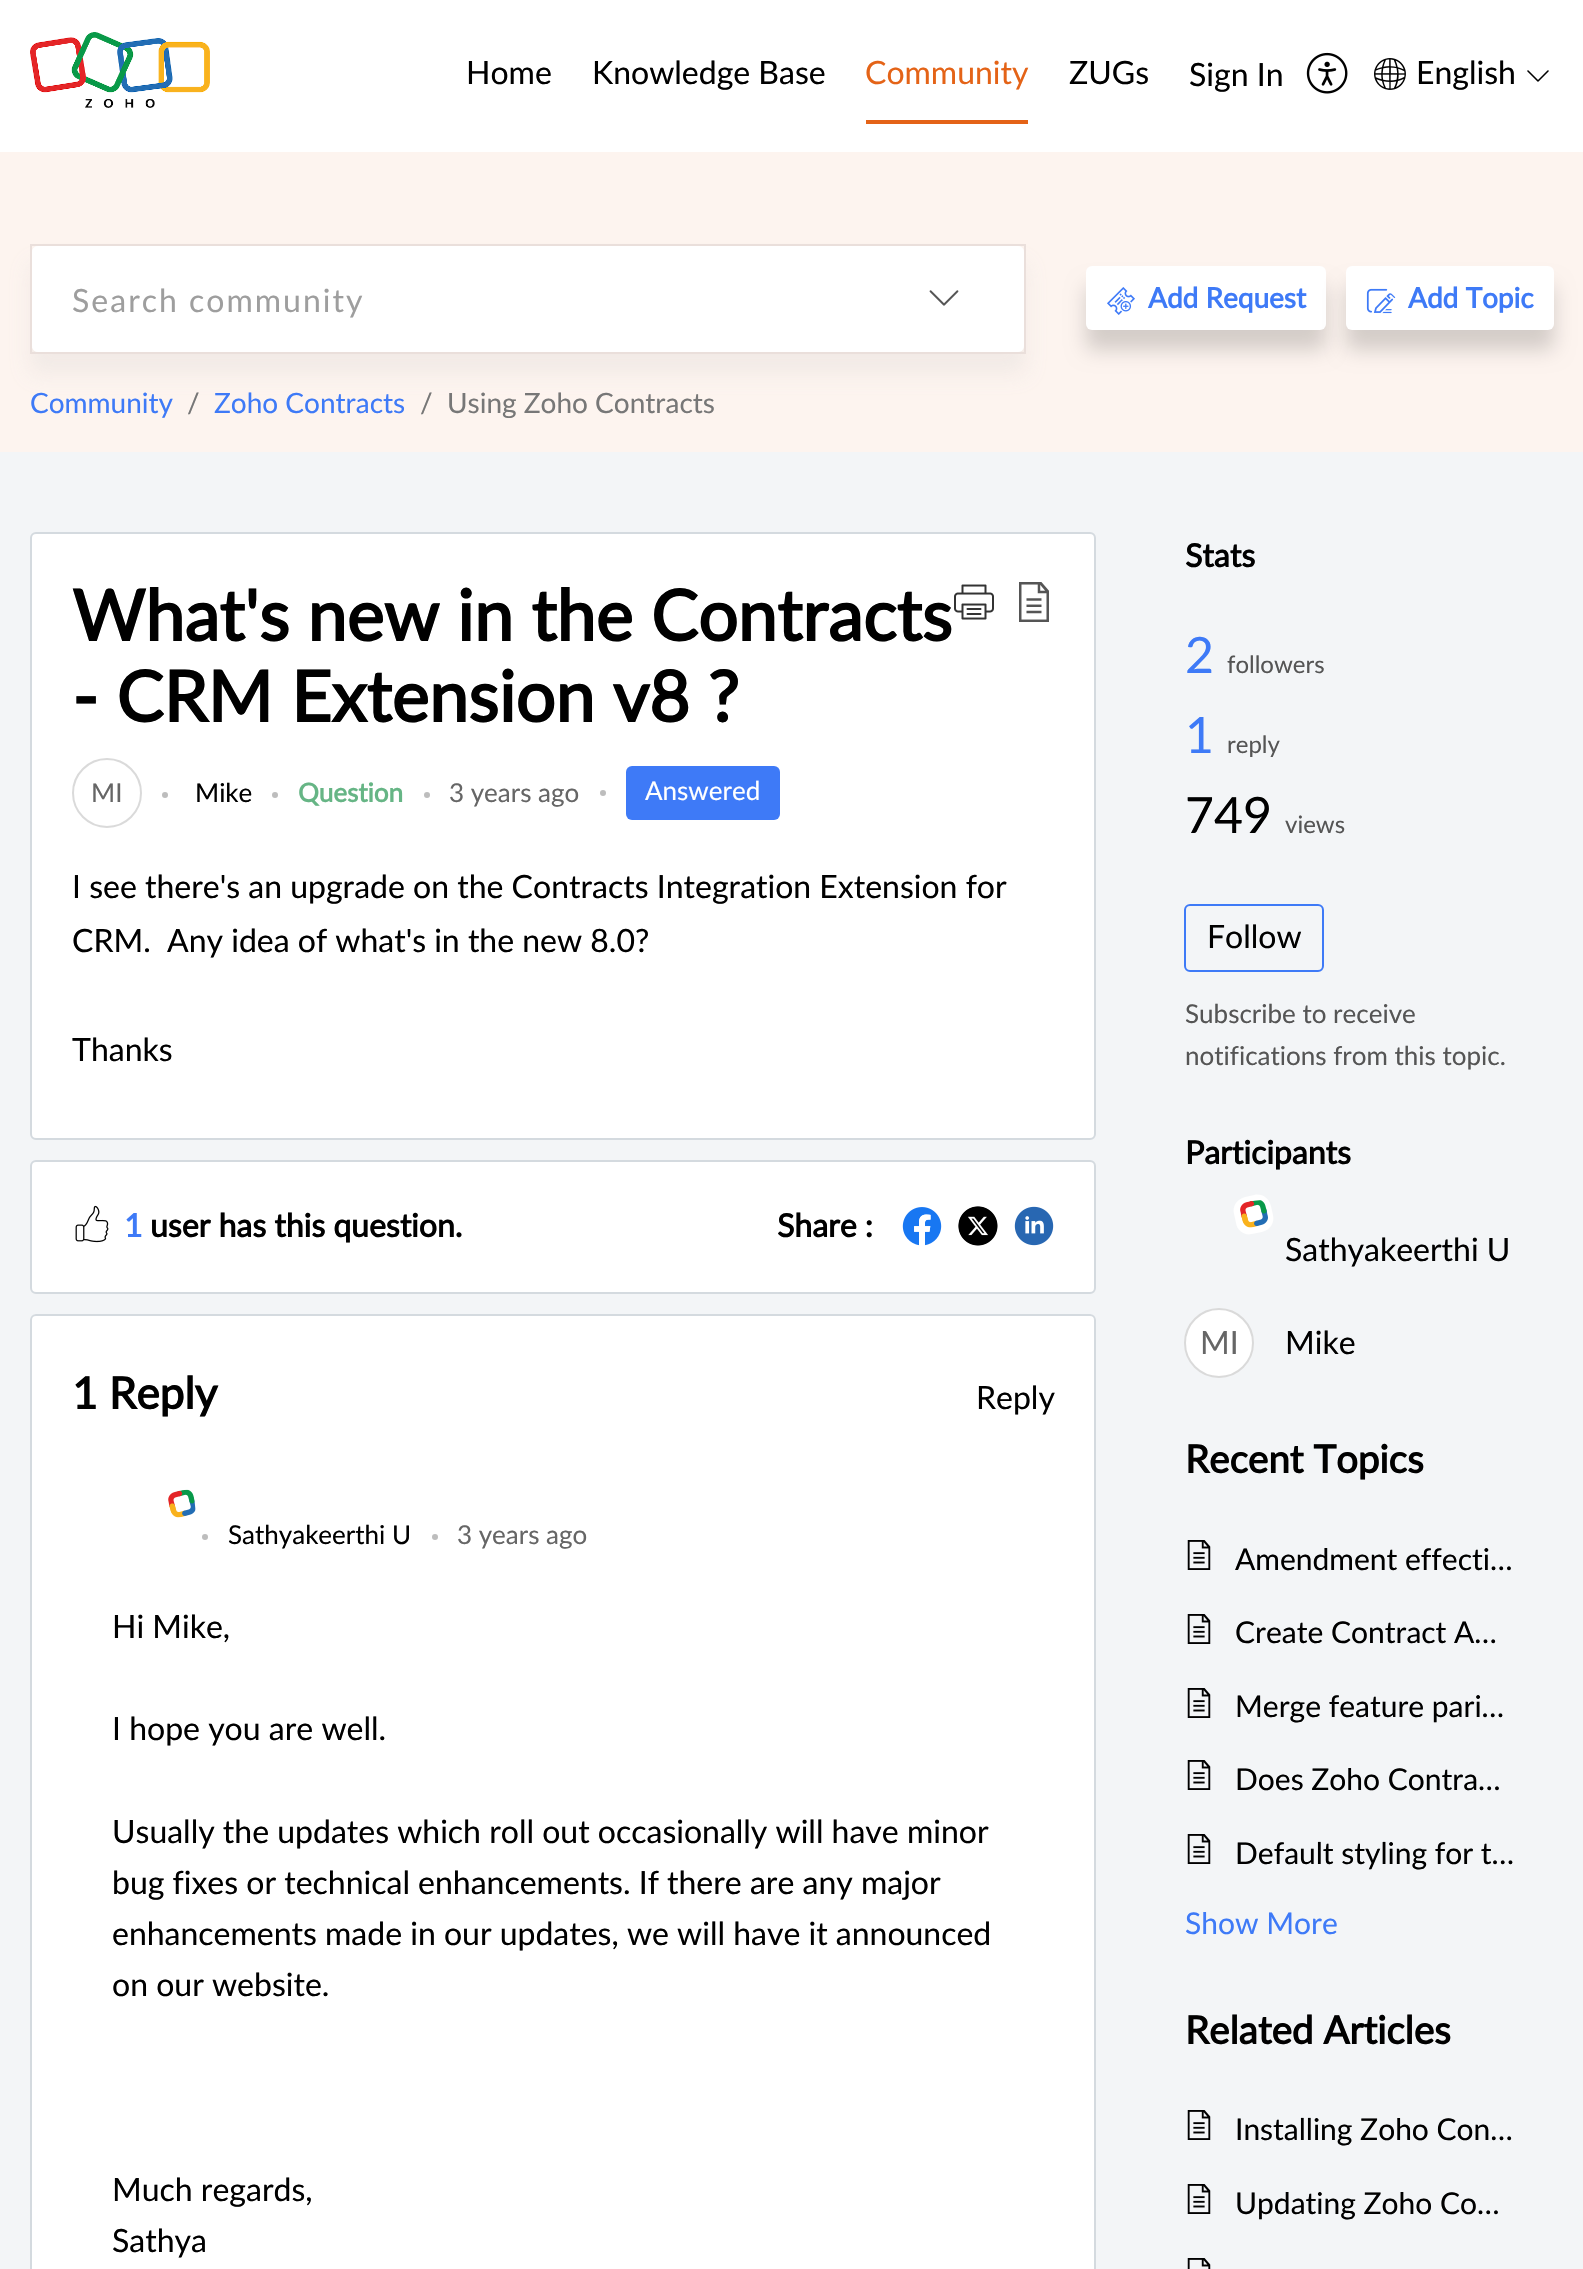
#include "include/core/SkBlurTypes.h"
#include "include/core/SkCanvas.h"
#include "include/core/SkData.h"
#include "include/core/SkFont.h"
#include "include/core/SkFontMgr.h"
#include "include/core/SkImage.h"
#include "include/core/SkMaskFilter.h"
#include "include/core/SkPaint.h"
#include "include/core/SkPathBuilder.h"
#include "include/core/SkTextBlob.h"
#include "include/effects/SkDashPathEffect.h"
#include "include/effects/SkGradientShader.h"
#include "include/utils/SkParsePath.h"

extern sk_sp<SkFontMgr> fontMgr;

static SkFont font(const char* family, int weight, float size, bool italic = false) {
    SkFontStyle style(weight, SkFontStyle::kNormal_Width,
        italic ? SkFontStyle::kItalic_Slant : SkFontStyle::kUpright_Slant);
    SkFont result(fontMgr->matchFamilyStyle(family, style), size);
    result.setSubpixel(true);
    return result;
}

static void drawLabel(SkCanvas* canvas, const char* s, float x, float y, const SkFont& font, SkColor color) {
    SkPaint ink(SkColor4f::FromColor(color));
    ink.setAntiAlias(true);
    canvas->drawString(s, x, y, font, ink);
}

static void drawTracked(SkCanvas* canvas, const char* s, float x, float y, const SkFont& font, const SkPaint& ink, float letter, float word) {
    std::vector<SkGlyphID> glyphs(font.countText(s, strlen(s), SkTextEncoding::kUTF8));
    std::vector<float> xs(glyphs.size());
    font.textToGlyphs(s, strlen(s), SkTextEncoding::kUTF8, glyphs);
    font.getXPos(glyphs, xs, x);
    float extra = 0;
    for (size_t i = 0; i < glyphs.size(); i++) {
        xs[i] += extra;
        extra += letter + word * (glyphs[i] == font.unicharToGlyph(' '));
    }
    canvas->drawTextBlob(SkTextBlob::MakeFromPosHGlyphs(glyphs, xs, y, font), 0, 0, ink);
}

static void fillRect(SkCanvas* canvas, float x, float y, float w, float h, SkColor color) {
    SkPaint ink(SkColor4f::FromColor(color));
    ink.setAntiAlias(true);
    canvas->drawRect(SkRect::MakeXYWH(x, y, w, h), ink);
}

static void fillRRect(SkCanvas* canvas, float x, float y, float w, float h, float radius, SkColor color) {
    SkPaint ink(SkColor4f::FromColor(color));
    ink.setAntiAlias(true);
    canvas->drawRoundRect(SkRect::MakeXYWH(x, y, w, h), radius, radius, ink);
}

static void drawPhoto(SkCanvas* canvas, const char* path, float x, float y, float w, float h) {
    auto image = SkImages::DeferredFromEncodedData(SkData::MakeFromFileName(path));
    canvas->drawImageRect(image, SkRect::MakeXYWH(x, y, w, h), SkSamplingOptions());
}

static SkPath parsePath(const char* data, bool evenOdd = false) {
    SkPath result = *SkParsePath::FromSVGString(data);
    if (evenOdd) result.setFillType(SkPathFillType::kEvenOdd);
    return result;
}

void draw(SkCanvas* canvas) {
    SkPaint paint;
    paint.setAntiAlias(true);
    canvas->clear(0xFFF3F5F7);
    fillRect(canvas, 0, 0, 1583, 152, 0xFFFFFFFF);
    drawPhoto(canvas, "assets/img1.png", 30, 32, 180, 76);
    SkFont font1 = font("Lato", 400, 32);
    drawLabel(canvas, "Home", 466, 84, font1, 0xFF000000);
    drawLabel(canvas, "Knowledge Base", 592, 84, font1, 0xFF000000);
    fillRect(canvas, 866, 120, 162, 4, 0xFFE46317);
    drawLabel(canvas, "Community", 865, 84, font1, 0xFFE46317);
    drawLabel(canvas, "ZUGs", 1069, 84, font1, 0xFF000000);
    drawLabel(canvas, "Sign In", 1189, 86, font1, 0xFF000000);
    drawPhoto(canvas, "assets/img2.png", 1306, 52, 42, 42);
    drawPhoto(canvas, "assets/img3.png", 1374, 58, 32, 32);
    drawLabel(canvas, "English", 1416, 84, font1, 0xFF000000);
    drawPhoto(canvas, "assets/img4.png", 1527, 70, 22, 12);
    fillRect(canvas, 0, 152, 1583, 300, 0xFFFDF4EF);
    paint.setColor(0xD6F0E8E5);
    paint.setMaskFilter(SkMaskFilter::MakeBlur(kNormal_SkBlurStyle, 10));
    canvas->drawRect(SkRect::MakeXYWH(30, 264, 996, 110), paint);
    paint.setMaskFilter(nullptr);
    paint.setStroke(true);
    paint.setStrokeWidth(2);
    paint.setColor(0xFFEADFDB);
    canvas->drawRect(SkRect::MakeXYWH(31, 245, 994, 108), paint);
    fillRRect(canvas, 32, 246, 992, 106, 6, 0xFFFFFFFF);
    fillRRect(canvas, 32, 246, 832, 106, 6, 0xFFFFFFFF);
    paint.setStroke(false);
    paint.setColor(0xFF9E9E9E);
    drawTracked(canvas, "Search community", 72, 312, font1, paint, 2, 0);
    paint.setColor(0x80FFFFFF);
    canvas->drawPath(parsePath("M864 246H1018C1021.5 246 1024 248.5 1024 252V346C1024 349.5 1021.5 352 1018 352H864Z"), paint);
    drawPhoto(canvas, "assets/img5.png", 929, 290, 30, 16);
    paint.setColor(0x29000000);
    paint.setMaskFilter(SkMaskFilter::MakeBlur(kNormal_SkBlurStyle, 10));
    canvas->drawRoundRect(SkRect::MakeXYWH(1086, 286, 240, 64), 6, 6, paint);
    paint.setMaskFilter(nullptr);
    fillRRect(canvas, 1086, 266, 240, 64, 6, 0xFFFFFFFF);
    drawPhoto(canvas, "assets/img6.png", 1107, 287, 28, 28);
    SkFont font2 = font("Lato", 700, 28);
    drawLabel(canvas, "Add Request", 1148, 308, font2, 0xFF3E7AF7);
    paint.setMaskFilter(SkMaskFilter::MakeBlur(kNormal_SkBlurStyle, 10));
    canvas->drawRoundRect(SkRect::MakeXYWH(1346, 286, 208, 64), 6, 6, paint);
    paint.setMaskFilter(nullptr);
    fillRRect(canvas, 1346, 266, 208, 64, 6, 0xFFFFFFFF);
    drawPhoto(canvas, "assets/img7.png", 1366, 288, 30, 26);
    drawLabel(canvas, "Add Topic", 1408, 308, font2, 0xFF3E7AF7);
    SkFont font3 = font("Lato", 400, 28);
    drawLabel(canvas, "Community", 30, 413, font3, 0xFF3E7AF7);
    drawLabel(canvas, "/", 187, 413, font3, 0xFF777777);
    drawLabel(canvas, "Zoho Contracts", 214, 413, font3, 0xFF3E7AF7);
    drawLabel(canvas, "/", 420, 413, font3, 0xFF777777);
    drawLabel(canvas, "Using Zoho Contracts", 447, 413, font3, 0xFF777777);
    paint.setColor(0xFFFFFFFF);
    canvas->drawRoundRect(SkRect::MakeXYWH(31, 533, 1064, 606), 5, 5, paint);
    paint.setStroke(true);
    paint.setColor(0xFFD4DADF);
    canvas->drawRoundRect(SkRect::MakeXYWH(31, 533, 1064, 606), 5, 5, paint);
    SkFont font4 = font("Lato", 700, 70.4f);
    drawLabel(canvas, "What's new in the Contracts", 72, 641, font4, 0xFF000000);
    drawLabel(canvas, "- CRM Extension v8 ?", 72, 722, font4, 0xFF000000);
    drawPhoto(canvas, "assets/img8.png", 954, 584, 40, 36);
    drawPhoto(canvas, "assets/img9.png", 1019, 582, 30, 40);
    paint.setColor(0xFFDADADA);
    canvas->drawCircle(107, 793, 34, paint);
    SkFont font5 = font("Lato", 400, 26);
    drawLabel(canvas, "MI", 91, 802, font5, 0xFF666666);
    paint.setStroke(false);
    paint.setColor(0xFFBDBDBD);
    canvas->drawCircle(165, 795, 3, paint);
    drawLabel(canvas, "Mike", 195, 802, font5, 0xFF000000);
    canvas->drawCircle(275, 795, 3, paint);
    SkFont font6 = font("Lato", 700, 26);
    drawLabel(canvas, "Question", 298, 802, font6, 0xFF66B585);
    canvas->drawCircle(427, 795, 3, paint);
    drawLabel(canvas, "3 years ago", 449, 802, font5, 0xFF666666);
    canvas->drawCircle(603, 793, 3, paint);
    fillRRect(canvas, 626, 766, 154, 54, 6, 0xFF3E7AF7);
    drawLabel(canvas, "Answered", 645, 800, font5, 0xFFFFFFFF);
    drawLabel(canvas, "I see there's an upgrade on the Contracts Integration Extension for", 72, 898, font1, 0xFF000000);
    drawLabel(canvas, "CRM.  Any idea of what's in the new 8.0?", 72, 952, font1, 0xFF000000);
    drawLabel(canvas, "Thanks", 72, 1061, font1, 0xFF000000);
    paint.setColor(0xFFFFFFFF);
    canvas->drawRoundRect(SkRect::MakeXYWH(31, 1161, 1064, 132), 5, 5, paint);
    paint.setStroke(true);
    paint.setColor(0xFFD4DADF);
    canvas->drawRoundRect(SkRect::MakeXYWH(31, 1161, 1064, 132), 5, 5, paint);
    drawPhoto(canvas, "assets/img10.png", 75, 1205, 34, 38);
    SkFont font7 = font("Lato", 700, 32);
    drawLabel(canvas, "1", 124, 1237, font7, 0xFF3E7AF7);
    drawLabel(canvas, "user has this question.", 150, 1237, font7, 0xFF000000);
    drawLabel(canvas, "Share :", 777, 1237, font7, 0xFF000000);
    drawPhoto(canvas, "assets/img11.png", 902, 1207, 40, 39);
    drawPhoto(canvas, "assets/img12.png", 958, 1206, 40, 40);
    drawPhoto(canvas, "assets/img13.png", 1014, 1206, 40, 40);
    paint.setStroke(false);
    paint.setColor(0xFFFFFFFF);
    canvas->drawPath(parsePath("M36 1314H1090C1093.5 1314 1096 1316.5 1096 1320V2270H30V1320C30 1316.5 32.5 1314 36 1314Z"), paint);
    paint.setStroke(true);
    paint.setColor(0xFFD4DADF);
    canvas->drawRoundRect(SkRect::MakeXYWH(31, 1315, 1064, 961), 5, 5, paint);
    SkFont font8 = font("Lato", 700, 44);
    drawLabel(canvas, "1 Reply", 72, 1409, font8, 0xFF000000);
    drawLabel(canvas, "Reply", 976, 1409, font1, 0xFF000000);
    drawPhoto(canvas, "assets/img14.png", 168, 1489, 28, 29);
    paint.setStroke(false);
    paint.setColor(0xFFBDBDBD);
    canvas->drawCircle(205, 1537, 3, paint);
    drawLabel(canvas, "Sathyakeerthi U", 228, 1544, font5, 0xFF000000);
    canvas->drawCircle(435, 1537, 3, paint);
    drawLabel(canvas, "3 years ago", 457, 1544, font5, 0xFF666666);
    drawLabel(canvas, "Hi Mike,", 112, 1638, font1, 0xFF000000);
    drawLabel(canvas, "I hope you are well.", 112, 1740, font1, 0xFF000000);
    drawLabel(canvas, "Usually the updates which roll out occasionally will have minor", 112, 1843, font1, 0xFF000000);
    drawLabel(canvas, "bug fixes or technical enhancements. If there are any major", 112, 1894, font1, 0xFF000000);
    drawLabel(canvas, "enhancements made in our updates, we will have it announced", 112, 1945, font1, 0xFF000000);
    drawLabel(canvas, "on our website.", 112, 1996, font1, 0xFF000000);
    drawLabel(canvas, "Much regards,", 112, 2201, font1, 0xFF000000);
    drawLabel(canvas, "Sathya", 112, 2252, font1, 0xFF000000);
    drawLabel(canvas, "Stats", 1185, 567, font7, 0xFF000000);
    SkFont font9 = font("Lato", 400, 50);
    drawLabel(canvas, "2", 1185, 673, font9, 0xFF3E7AF7);
    SkFont font10 = font("Lato", 400, 24);
    drawLabel(canvas, "followers", 1227, 673, font10, 0xFF555555);
    drawLabel(canvas, "1", 1185, 753, font9, 0xFF3E7AF7);
    drawLabel(canvas, "reply", 1227, 753, font10, 0xFF555555);
    drawLabel(canvas, "749", 1185, 833, font9, 0xFF000000);
    drawLabel(canvas, "views", 1285, 833, font10, 0xFF555555);
    paint.setStroke(true);
    paint.setColor(0xFF3E7AF7);
    canvas->drawRoundRect(SkRect::MakeXYWH(1185, 905, 138, 66), 5, 5, paint);
    drawLabel(canvas, "Follow", 1207, 948, font1, 0xFF000000);
    drawLabel(canvas, "Subscribe to receive", 1185, 1023, font5, 0xFF555555);
    drawLabel(canvas, "notifications from this topic.", 1185, 1065, font5, 0xFF555555);
    drawLabel(canvas, "Participants", 1185, 1164, font7, 0xFF000000);
    paint.setStroke(false);
    paint.setColor(0xFFFFFFFF);
    canvas->drawPath(parsePath("M1245 1197L1254 1195C1262 1193 1269 1198 1271 1206L1273 1215C1275 1223 1270 1230 1262 1232L1252 1234C1245 1236 1237 1231 1236 1223L1234 1214C1232 1206 1237 1199 1245 1197Z"), paint);
    drawPhoto(canvas, "assets/img15.png", 1240, 1200, 28, 28);
    drawLabel(canvas, "Sathyakeerthi U", 1285, 1261, font1, 0xFF000000);
    canvas->drawCircle(1219, 1343, 34, paint);
    paint.setStroke(true);
    paint.setColor(0xFFDADADA);
    canvas->drawCircle(1219, 1343, 34, paint);
    drawLabel(canvas, "MI", 1200, 1354, font1, 0xFF666666);
    drawLabel(canvas, "Mike", 1285, 1354, font1, 0xFF000000);
    SkFont font11 = font("Lato", 700, 38.5f);
    drawLabel(canvas, "Recent Topics", 1185, 1473, font11, 0xFF000000);
    drawPhoto(canvas, "assets/img16.png", 1187, 1540, 24, 30);
    SkFont font12 = font("Lato", 400, 30);
    drawLabel(canvas, "Amendment effecti…", 1235, 1570, font12, 0xFF000000);
    drawPhoto(canvas, "assets/img16.png", 1187, 1614, 24, 30);
    drawLabel(canvas, "Create Contract A…", 1235, 1643, font12, 0xFF000000);
    drawPhoto(canvas, "assets/img16.png", 1187, 1688, 24, 30);
    drawLabel(canvas, "Merge feature pari…", 1235, 1717, font12, 0xFF000000);
    drawPhoto(canvas, "assets/img16.png", 1187, 1760, 24, 30);
    drawLabel(canvas, "Does Zoho Contra…", 1235, 1790, font12, 0xFF000000);
    drawPhoto(canvas, "assets/img16.png", 1187, 1834, 24, 30);
    drawLabel(canvas, "Default styling for t…", 1235, 1864, font12, 0xFF000000);
    drawLabel(canvas, "Show More", 1185, 1934, font12, 0xFF3E7AF7);
    drawLabel(canvas, "Related Articles", 1185, 2044, font11, 0xFF000000);
    drawPhoto(canvas, "assets/img16.png", 1187, 2110, 24, 30);
    drawLabel(canvas, "Installing Zoho Con…", 1235, 2140, font12, 0xFF000000);
    drawPhoto(canvas, "assets/img16.png", 1187, 2184, 24, 30);
    drawLabel(canvas, "Updating Zoho Co…", 1235, 2214, font12, 0xFF000000);
    drawPhoto(canvas, "assets/img17.png", 1187, 2258, 24, 11);
}
